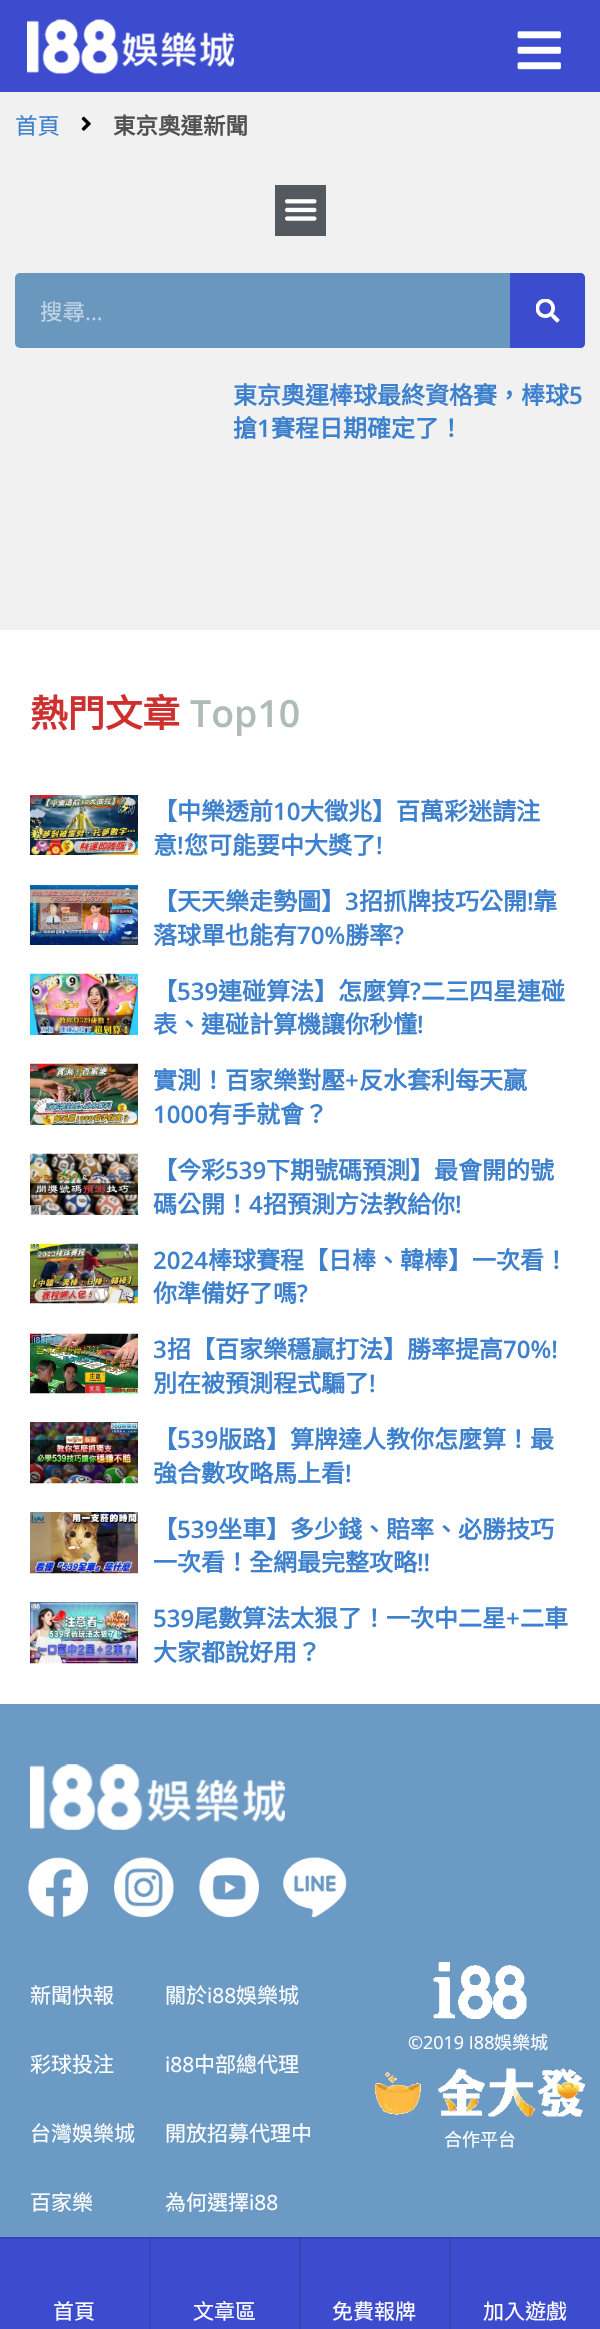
#include "include/core/SkBlurTypes.h"
#include "include/core/SkCanvas.h"
#include "include/core/SkData.h"
#include "include/core/SkFont.h"
#include "include/core/SkFontMgr.h"
#include "include/core/SkImage.h"
#include "include/core/SkMaskFilter.h"
#include "include/core/SkPaint.h"
#include "include/core/SkPathBuilder.h"
#include "include/core/SkTextBlob.h"
#include "include/effects/SkDashPathEffect.h"
#include "include/effects/SkGradientShader.h"
#include "include/utils/SkParsePath.h"

extern sk_sp<SkFontMgr> fontMgr;

static SkFont font(const char* family, int weight, float size, bool italic = false) {
    SkFontStyle style(weight, SkFontStyle::kNormal_Width,
        italic ? SkFontStyle::kItalic_Slant : SkFontStyle::kUpright_Slant);
    SkFont result(fontMgr->matchFamilyStyle(family, style), size);
    result.setSubpixel(true);
    return result;
}

static void drawLabel(SkCanvas* canvas, const char* s, float x, float y, const SkFont& font, SkColor color) {
    SkPaint ink(SkColor4f::FromColor(color));
    ink.setAntiAlias(true);
    canvas->drawString(s, x, y, font, ink);
}

static void fillRect(SkCanvas* canvas, float x, float y, float w, float h, SkColor color) {
    SkPaint ink(SkColor4f::FromColor(color));
    ink.setAntiAlias(true);
    canvas->drawRect(SkRect::MakeXYWH(x, y, w, h), ink);
}

static void fillRRect(SkCanvas* canvas, float x, float y, float w, float h, float radius, SkColor color) {
    SkPaint ink(SkColor4f::FromColor(color));
    ink.setAntiAlias(true);
    canvas->drawRoundRect(SkRect::MakeXYWH(x, y, w, h), radius, radius, ink);
}

static void drawPhoto(SkCanvas* canvas, const char* path, float x, float y, float w, float h) {
    auto image = SkImages::DeferredFromEncodedData(SkData::MakeFromFileName(path));
    canvas->drawImageRect(image, SkRect::MakeXYWH(x, y, w, h), SkSamplingOptions());
}

static SkPath parsePath(const char* data, bool evenOdd = false) {
    SkPath result = *SkParsePath::FromSVGString(data);
    if (evenOdd) result.setFillType(SkPathFillType::kEvenOdd);
    return result;
}

void draw(SkCanvas* canvas) {
    SkPaint paint;
    paint.setAntiAlias(true);
    canvas->clear(0xFFF1F1F1);
    fillRect(canvas, 0, 0, 600, 92, 0xFF3D4CCE);
    drawPhoto(canvas, "assets/img1.png", 27, 19, 207, 55);
    drawPhoto(canvas, "assets/img2.png", 517, 31, 44, 39);
    SkFont font1 = font("Noto Sans CJK TC", 400, 22.5f);
    drawLabel(canvas, "首頁", 15, 134, font1, 0xFF3D81CE);
    drawPhoto(canvas, "assets/img3.png", 81, 116, 10, 15);
    SkFont font2 = font("Noto Sans CJK TC", 700, 22.5f);
    drawLabel(canvas, "東京奧運新聞", 113, 134, font2, 0xFF515151);
    fillRect(canvas, 275, 185, 51, 51, 0xFF54595F);
    drawPhoto(canvas, "assets/img4.png", 285, 199, 32, 22);
    fillRRect(canvas, 15, 273, 570, 75, 5, 0xFF6A97BD);
    drawLabel(canvas, "搜尋", 40, 320, font1, 0xFFC3D5E5);
    SkFont font3 = font("Open Sans", 400, 22.5f);
    drawLabel(canvas, "...", 85, 320, font3, 0xFFC3D5E5);
    paint.setColor(0xFF3C4CCE);
    canvas->drawPath(parsePath("M510 273H580C583 273 585 275 585 278V343C585 346 583 348 580 348H510Z"), paint);
    drawPhoto(canvas, "assets/img5.png", 536, 299, 24, 24);
    SkFont font4 = font("Noto Sans CJK TC", 700, 24);
    drawLabel(canvas, "東京奧運棒球最終資格賽，棒球", 233, 404, font4, 0xFF3D81CE);
    SkFont font5 = font("Open Sans", 600, 24);
    drawLabel(canvas, "5", 569, 404, font5, 0xFF3D81CE);
    drawLabel(canvas, "搶", 233, 437, font4, 0xFF3D81CE);
    drawLabel(canvas, "1", 257, 437, font5, 0xFF3D81CE);
    drawLabel(canvas, "賽程日期確定了！", 271, 437, font4, 0xFF3D81CE);
    fillRect(canvas, 0, 630, 600, 1074, 0xFFFFFFFF);
    SkFont font6 = font("Noto Sans CJK TC", 700, 37.5f);
    drawLabel(canvas, "熱門文章", 30, 727, font6, 0xFFCE2F2F);
    SkFont font7 = font("Open Sans", 600, 37.5f);
    drawLabel(canvas, "Top10", 190, 727, font7, 0xFFAEBCB9);
    drawPhoto(canvas, "assets/img6.png", 30, 795, 108, 60);
    drawLabel(canvas, "【中樂透前", 153, 820, font4, 0xFF3D81CE);
    drawLabel(canvas, "10", 273, 820, font5, 0xFF3D81CE);
    drawLabel(canvas, "大徵兆】百萬彩迷請注", 300, 820, font4, 0xFF3D81CE);
    drawLabel(canvas, "意", 153, 854, font4, 0xFF3D81CE);
    drawLabel(canvas, "!", 177, 854, font5, 0xFF3D81CE);
    drawLabel(canvas, "您可能要中大獎了", 184, 854, font4, 0xFF3D81CE);
    drawLabel(canvas, "!", 376, 854, font5, 0xFF3D81CE);
    drawPhoto(canvas, "assets/img7.png", 30, 885, 108, 60);
    drawLabel(canvas, "【天天樂走勢圖】", 153, 910, font4, 0xFF3D81CE);
    drawLabel(canvas, "3", 345, 910, font5, 0xFF3D81CE);
    drawLabel(canvas, "招抓牌技巧公開", 359, 910, font4, 0xFF3D81CE);
    drawLabel(canvas, "!", 527, 910, font5, 0xFF3D81CE);
    drawLabel(canvas, "靠", 533, 910, font4, 0xFF3D81CE);
    drawLabel(canvas, "落球單也能有", 153, 944, font4, 0xFF3D81CE);
    drawLabel(canvas, "70%", 297, 944, font5, 0xFF3D81CE);
    drawLabel(canvas, "勝率", 345, 944, font4, 0xFF3D81CE);
    drawLabel(canvas, "?", 393, 944, font5, 0xFF3D81CE);
    drawPhoto(canvas, "assets/img8.png", 30, 973, 108, 62);
    drawLabel(canvas, "【", 153, 1000, font4, 0xFF3D81CE);
    drawLabel(canvas, "539", 177, 1000, font5, 0xFF3D81CE);
    drawLabel(canvas, "連碰算法】怎麼算", 218, 1000, font4, 0xFF3D81CE);
    drawLabel(canvas, "?", 410, 1000, font5, 0xFF3D81CE);
    drawLabel(canvas, "二三四星連碰", 421, 1000, font4, 0xFF3D81CE);
    drawLabel(canvas, "表、連碰計算機讓你秒懂", 153, 1033, font4, 0xFF3D81CE);
    drawLabel(canvas, "!", 417, 1033, font5, 0xFF3D81CE);
    drawPhoto(canvas, "assets/img9.png", 30, 1063, 108, 62);
    drawLabel(canvas, "實測！百家樂對壓", 153, 1089, font4, 0xFF3D81CE);
    drawLabel(canvas, "+", 345, 1089, font5, 0xFF3D81CE);
    drawLabel(canvas, "反水套利每天贏", 359, 1089, font4, 0xFF3D81CE);
    drawLabel(canvas, "1000", 153, 1123, font5, 0xFF3D81CE);
    drawLabel(canvas, "有手就會？", 208, 1123, font4, 0xFF3D81CE);
    drawPhoto(canvas, "assets/img10.png", 30, 1153, 108, 62);
    drawLabel(canvas, "【今彩", 153, 1179, font4, 0xFF3D81CE);
    drawLabel(canvas, "539", 225, 1179, font5, 0xFF3D81CE);
    drawLabel(canvas, "下期號碼預測】最會開的號", 266, 1179, font4, 0xFF3D81CE);
    drawLabel(canvas, "碼公開！", 153, 1213, font4, 0xFF3D81CE);
    drawLabel(canvas, "4", 249, 1213, font5, 0xFF3D81CE);
    drawLabel(canvas, "招預測方法教給你", 263, 1213, font4, 0xFF3D81CE);
    drawLabel(canvas, "!", 455, 1213, font5, 0xFF3D81CE);
    drawPhoto(canvas, "assets/img11.png", 30, 1243, 108, 61);
    drawLabel(canvas, "2024", 153, 1269, font5, 0xFF3D81CE);
    drawLabel(canvas, "棒球賽程【日棒、韓棒】一次看！", 208, 1269, font4, 0xFF3D81CE);
    drawLabel(canvas, "你準備好了嗎", 153, 1302, font4, 0xFF3D81CE);
    drawLabel(canvas, "?", 297, 1302, font5, 0xFF3D81CE);
    drawPhoto(canvas, "assets/img12.png", 30, 1333, 108, 61);
    drawLabel(canvas, "3", 153, 1358, font5, 0xFF3D81CE);
    drawLabel(canvas, "招【百家樂穩贏打法】勝率提高", 167, 1358, font4, 0xFF3D81CE);
    drawLabel(canvas, "70%!", 503, 1358, font5, 0xFF3D81CE);
    drawLabel(canvas, "別在被預測程式騙了", 153, 1392, font4, 0xFF3D81CE);
    drawLabel(canvas, "!", 369, 1392, font5, 0xFF3D81CE);
    drawPhoto(canvas, "assets/img13.png", 30, 1422, 108, 62);
    drawLabel(canvas, "【", 153, 1448, font4, 0xFF3D81CE);
    drawLabel(canvas, "539", 177, 1448, font5, 0xFF3D81CE);
    drawLabel(canvas, "版路】算牌達人教你怎麼算！最", 218, 1448, font4, 0xFF3D81CE);
    drawLabel(canvas, "強合數攻略馬上看", 153, 1482, font4, 0xFF3D81CE);
    drawLabel(canvas, "!", 345, 1482, font5, 0xFF3D81CE);
    drawPhoto(canvas, "assets/img14.png", 30, 1512, 108, 62);
    drawLabel(canvas, "【", 153, 1538, font4, 0xFF3D81CE);
    drawLabel(canvas, "539", 177, 1538, font5, 0xFF3D81CE);
    drawLabel(canvas, "坐車】多少錢、賠率、必勝技巧", 218, 1538, font4, 0xFF3D81CE);
    drawLabel(canvas, "一次看！全網最完整攻略", 153, 1571, font4, 0xFF3D81CE);
    drawLabel(canvas, "!!", 417, 1571, font5, 0xFF3D81CE);
    drawPhoto(canvas, "assets/img15.png", 30, 1602, 108, 62);
    drawLabel(canvas, "539", 153, 1627, font5, 0xFF3D81CE);
    drawLabel(canvas, "尾數算法太狠了！一次中二星", 194, 1627, font4, 0xFF3D81CE);
    drawLabel(canvas, "+", 506, 1627, font5, 0xFF3D81CE);
    drawLabel(canvas, "二車", 520, 1627, font4, 0xFF3D81CE);
    drawLabel(canvas, "大家都說好用？", 153, 1661, font4, 0xFF3D81CE);
    fillRect(canvas, 0, 1704, 600, 533, 0xFF6B9AC4);
    drawPhoto(canvas, "assets/img16.png", 30, 1764, 255, 66);
    drawPhoto(canvas, "assets/img17.png", 28, 1857, 60, 61);
    drawPhoto(canvas, "assets/img18.png", 114, 1857, 60, 61);
    drawPhoto(canvas, "assets/img19.png", 199, 1857, 60, 61);
    drawPhoto(canvas, "assets/img20.png", 283, 1857, 64, 61);
    SkFont font8 = font("Noto Sans CJK TC", 400, 21);
    drawLabel(canvas, "新聞快報", 30, 2003, font8, 0xFFFFFFFF);
    drawLabel(canvas, "彩球投注", 30, 2072, font8, 0xFFFFFFFF);
    drawLabel(canvas, "台灣娛樂城", 30, 2141, font8, 0xFFFFFFFF);
    drawLabel(canvas, "百家樂", 30, 2210, font8, 0xFFFFFFFF);
    drawLabel(canvas, "關於", 165, 2003, font8, 0xFFFFFFFF);
    SkFont font9 = font("Open Sans", 400, 21);
    drawLabel(canvas, "i88", 207, 2003, font9, 0xFFFFFFFF);
    drawLabel(canvas, "娛樂城", 236, 2003, font8, 0xFFFFFFFF);
    drawLabel(canvas, "i88", 165, 2072, font9, 0xFFFFFFFF);
    drawLabel(canvas, "中部總代理", 194, 2072, font8, 0xFFFFFFFF);
    drawLabel(canvas, "開放招募代理中", 165, 2141, font8, 0xFFFFFFFF);
    drawLabel(canvas, "為何選擇", 165, 2210, font8, 0xFFFFFFFF);
    drawLabel(canvas, "i88", 249, 2210, font9, 0xFFFFFFFF);
    drawPhoto(canvas, "assets/img21.png", 433, 1962, 94, 57);
    SkFont font10 = font("Open Sans", 400, 18);
    drawLabel(canvas, "©2019 I88", 408, 2049, font10, 0xFFFFFFFF);
    SkFont font11 = font("Noto Sans CJK TC", 400, 18);
    drawLabel(canvas, "娛樂城", 494, 2049, font11, 0xFFFFFFFF);
    drawPhoto(canvas, "assets/img22.png", 375, 2068, 210, 49);
    drawLabel(canvas, "合作平台", 444, 2146, font11, 0xFFFFFFFF);
    fillRect(canvas, 0, 2239, 600, 90, 0xFF3D4CCE);
    fillRect(canvas, 449, 2238, 2, 91, 0xFF3744B9);
    fillRect(canvas, 299, 2238, 2, 91, 0xFF3744B9);
    fillRect(canvas, 149, 2238, 2, 91, 0xFF3744B9);
    fillRect(canvas, 0, 2237, 600, 2, 0xFF3744B9);
    fillRect(canvas, 449, 2238, 2, 1, 0xFF323DA7);
    fillRect(canvas, 299, 2238, 2, 1, 0xFF323DA7);
    fillRect(canvas, 149, 2238, 2, 1, 0xFF323DA7);
    drawLabel(canvas, "首頁", 53, 2319, font8, 0xFFFFFFFF);
    drawLabel(canvas, "文章區", 193, 2319, font8, 0xFFFFFFFF);
    drawLabel(canvas, "免費報牌", 332, 2319, font8, 0xFFFFFFFF);
    drawLabel(canvas, "加入遊戲", 483, 2319, font8, 0xFFFFFFFF);
}
